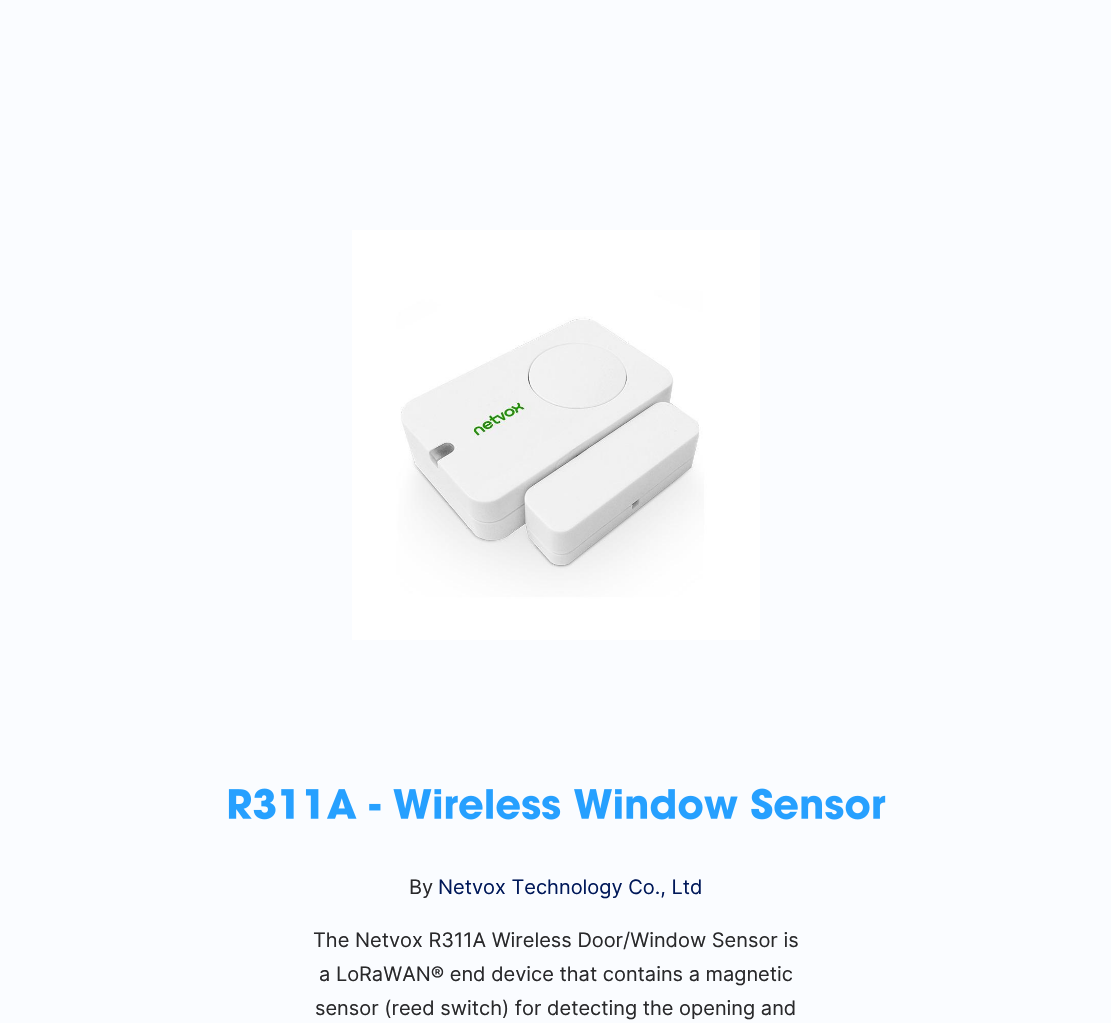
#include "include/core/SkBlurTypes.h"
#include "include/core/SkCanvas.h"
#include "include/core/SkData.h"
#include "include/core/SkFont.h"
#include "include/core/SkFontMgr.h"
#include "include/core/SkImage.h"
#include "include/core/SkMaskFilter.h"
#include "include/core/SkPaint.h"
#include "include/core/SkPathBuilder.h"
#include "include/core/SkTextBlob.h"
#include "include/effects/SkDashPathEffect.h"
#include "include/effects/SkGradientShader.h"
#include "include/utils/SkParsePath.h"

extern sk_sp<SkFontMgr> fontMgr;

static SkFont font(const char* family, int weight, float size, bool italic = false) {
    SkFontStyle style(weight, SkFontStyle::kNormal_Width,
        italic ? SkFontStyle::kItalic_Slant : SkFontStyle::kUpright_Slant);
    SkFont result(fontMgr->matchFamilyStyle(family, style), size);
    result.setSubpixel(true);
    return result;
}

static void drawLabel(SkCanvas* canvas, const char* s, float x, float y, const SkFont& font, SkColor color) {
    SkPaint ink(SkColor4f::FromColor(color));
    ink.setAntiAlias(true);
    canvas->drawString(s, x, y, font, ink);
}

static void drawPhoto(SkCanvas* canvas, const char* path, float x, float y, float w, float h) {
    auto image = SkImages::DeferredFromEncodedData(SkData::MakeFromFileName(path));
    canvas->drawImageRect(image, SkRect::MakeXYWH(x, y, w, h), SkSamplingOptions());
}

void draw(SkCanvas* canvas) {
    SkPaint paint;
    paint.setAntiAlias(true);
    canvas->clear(0xFFFAFCFF);
    drawPhoto(canvas, "assets/img1.png", 352, 230, 408, 410);
    drawPhoto(canvas, "assets/img2.png", 228, 788, 658, 32);
    SkFont font1 = font("Inter", 400, 20);
    drawLabel(canvas, "By", 409, 894, font1, 0xFF29292B);
    drawLabel(canvas, "Netvox Technology Co., Ltd", 438, 894, font1, 0xFF001859);
    drawLabel(canvas, "The Netvox R311A Wireless Door/Window Sensor is", 313, 947, font1, 0xFF29292B);
    drawLabel(canvas, "a LoRaWAN® end device that contains a magnetic", 319, 981, font1, 0xFF29292B);
    drawLabel(canvas, "sensor (reed switch) for detecting the opening and", 315, 1015, font1, 0xFF29292B);
}
